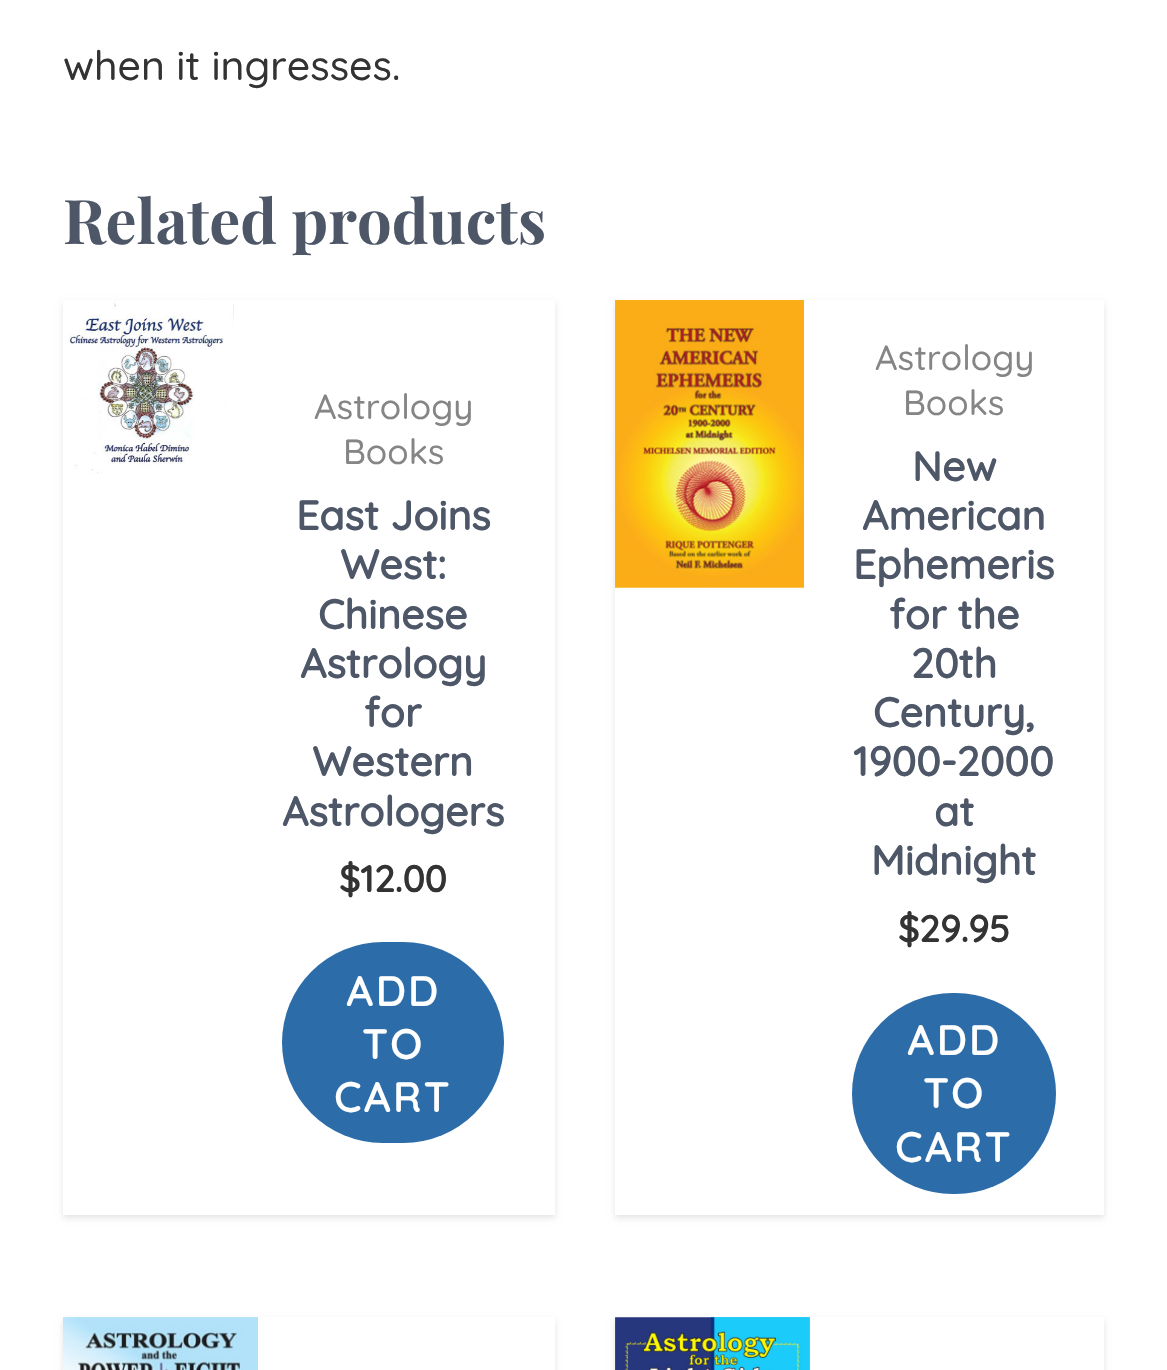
#include "include/core/SkBlurTypes.h"
#include "include/core/SkCanvas.h"
#include "include/core/SkData.h"
#include "include/core/SkFont.h"
#include "include/core/SkFontMgr.h"
#include "include/core/SkImage.h"
#include "include/core/SkMaskFilter.h"
#include "include/core/SkPaint.h"
#include "include/core/SkPathBuilder.h"
#include "include/core/SkTextBlob.h"
#include "include/effects/SkDashPathEffect.h"
#include "include/effects/SkGradientShader.h"
#include "include/utils/SkParsePath.h"

extern sk_sp<SkFontMgr> fontMgr;

static SkFont font(const char* family, int weight, float size, bool italic = false) {
    SkFontStyle style(weight, SkFontStyle::kNormal_Width,
        italic ? SkFontStyle::kItalic_Slant : SkFontStyle::kUpright_Slant);
    SkFont result(fontMgr->matchFamilyStyle(family, style), size);
    result.setSubpixel(true);
    return result;
}

static void drawLabel(SkCanvas* canvas, const char* s, float x, float y, const SkFont& font, SkColor color) {
    SkPaint ink(SkColor4f::FromColor(color));
    ink.setAntiAlias(true);
    canvas->drawString(s, x, y, font, ink);
}

static void drawTracked(SkCanvas* canvas, const char* s, float x, float y, const SkFont& font, const SkPaint& ink, float letter, float word) {
    std::vector<SkGlyphID> glyphs(font.countText(s, strlen(s), SkTextEncoding::kUTF8));
    std::vector<float> xs(glyphs.size());
    font.textToGlyphs(s, strlen(s), SkTextEncoding::kUTF8, glyphs);
    font.getXPos(glyphs, xs, x);
    float extra = 0;
    for (size_t i = 0; i < glyphs.size(); i++) {
        xs[i] += extra;
        extra += letter + word * (glyphs[i] == font.unicharToGlyph(' '));
    }
    canvas->drawTextBlob(SkTextBlob::MakeFromPosHGlyphs(glyphs, xs, y, font), 0, 0, ink);
}

static void fillRRect(SkCanvas* canvas, float x, float y, float w, float h, float radius, SkColor color) {
    SkPaint ink(SkColor4f::FromColor(color));
    ink.setAntiAlias(true);
    canvas->drawRoundRect(SkRect::MakeXYWH(x, y, w, h), radius, radius, ink);
}

static void drawPhoto(SkCanvas* canvas, const char* path, float x, float y, float w, float h) {
    auto image = SkImages::DeferredFromEncodedData(SkData::MakeFromFileName(path));
    canvas->drawImageRect(image, SkRect::MakeXYWH(x, y, w, h), SkSamplingOptions());
}

static SkPath parsePath(const char* data, bool evenOdd = false) {
    SkPath result = *SkParsePath::FromSVGString(data);
    if (evenOdd) result.setFillType(SkPathFillType::kEvenOdd);
    return result;
}

void draw(SkCanvas* canvas) {
    SkPaint paint;
    paint.setAntiAlias(true);
    canvas->clear(0xFFFFFFFF);
    SkFont font1 = font("Quicksand", 300, 41);
    drawLabel(canvas, "when it ingresses.", 63, 80, font1, 0xFF333333);
    SkFont font2 = font("Playfair Display", 700, 61.5f);
    drawLabel(canvas, "Related products", 63, 244, font2, 0xFF4E5768);
    canvas->save();
    canvas->clipPath(parsePath("M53 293H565V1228H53ZM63 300H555V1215H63Z", true), true);
    paint.setColor(0x1A000000);
    paint.setMaskFilter(SkMaskFilter::MakeBlur(kNormal_SkBlurStyle, 3));
    canvas->drawRect(SkRect::MakeXYWH(63, 303, 492, 915), paint);
    paint.setMaskFilter(nullptr);
    canvas->restore();
    drawPhoto(canvas, "assets/img1.png", 68, 302, 166, 172);
    SkFont font3 = font("Quicksand", 300, 35);
    drawLabel(canvas, "Astrology", 314, 419, font3, 0xFF858585);
    drawLabel(canvas, "Books", 343, 464, font3, 0xFF858585);
    SkFont font4 = font("Quicksand", 700, 41);
    drawLabel(canvas, "East Joins", 296, 530, font4, 0xFF4E5768);
    drawLabel(canvas, "West:", 340, 579, font4, 0xFF4E5768);
    drawLabel(canvas, "Chinese", 318, 629, font4, 0xFF4E5768);
    drawLabel(canvas, "Astrology", 300, 678, font4, 0xFF4E5768);
    drawLabel(canvas, "for", 364, 727, font4, 0xFF4E5768);
    drawLabel(canvas, "Western", 312, 776, font4, 0xFF4E5768);
    drawLabel(canvas, "Astrologers", 282, 826, font4, 0xFF4E5768);
    SkFont font5 = font("Quicksand", 700, 37);
    drawLabel(canvas, "$12.00", 339, 892, font5, 0xFF333333);
    fillRRect(canvas, 282, 942, 222, 201, 100.5f, 0xFF2B6CA9);
    paint.setColor(0xFFFFFFFF);
    drawTracked(canvas, "ADD", 346, 1006, font4, paint, 3, 0);
    drawTracked(canvas, "TO", 362, 1059, font4, paint, 3, 0);
    drawTracked(canvas, "CART", 334, 1112, font4, paint, 3, 0);
    canvas->save();
    canvas->clipPath(parsePath("M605 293H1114V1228H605ZM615 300H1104V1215H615Z", true), true);
    paint.setColor(0x1A000000);
    paint.setMaskFilter(SkMaskFilter::MakeBlur(kNormal_SkBlurStyle, 3));
    canvas->drawRect(SkRect::MakeXYWH(615, 303, 489, 915), paint);
    paint.setMaskFilter(nullptr);
    canvas->restore();
    drawPhoto(canvas, "assets/img2.png", 615, 300, 189, 288);
    drawLabel(canvas, "Astrology", 875, 370, font3, 0xFF858585);
    drawLabel(canvas, "Books", 903, 415, font3, 0xFF858585);
    drawLabel(canvas, "New", 912, 481, font4, 0xFF4E5768);
    drawLabel(canvas, "American", 862, 530, font4, 0xFF4E5768);
    drawLabel(canvas, "Ephemeris", 853, 579, font4, 0xFF4E5768);
    drawLabel(canvas, "for the", 889, 629, font4, 0xFF4E5768);
    drawLabel(canvas, "20th", 911, 678, font4, 0xFF4E5768);
    drawLabel(canvas, "Century,", 873, 727, font4, 0xFF4E5768);
    drawLabel(canvas, "1900-2000", 853, 776, font4, 0xFF4E5768);
    drawLabel(canvas, "at", 934, 826, font4, 0xFF4E5768);
    drawLabel(canvas, "Midnight", 871, 875, font4, 0xFF4E5768);
    drawLabel(canvas, "$29.95", 898, 942, font5, 0xFF333333);
    fillRRect(canvas, 852, 993, 204, 201, 100.5f, 0xFF2B6CA9);
    paint.setColor(0xFFFFFFFF);
    drawTracked(canvas, "ADD", 907, 1055, font4, paint, 3, 0);
    drawTracked(canvas, "TO", 923, 1108, font4, paint, 3, 0);
    drawTracked(canvas, "CART", 895, 1162, font4, paint, 3, 0);
    canvas->save();
    canvas->clipPath(parsePath("M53 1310H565V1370H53ZM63 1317H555V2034H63Z", true), true);
    paint.setColor(0x1A000000);
    paint.setMaskFilter(SkMaskFilter::MakeBlur(kNormal_SkBlurStyle, 3));
    canvas->drawRect(SkRect::MakeXYWH(63, 1320, 492, 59), paint);
    paint.setMaskFilter(nullptr);
    canvas->restore();
    drawPhoto(canvas, "assets/img3.png", 63, 1317, 195, 53);
    canvas->save();
    canvas->clipPath(parsePath("M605 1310H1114V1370H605ZM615 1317H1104V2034H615Z", true), true);
    paint.setMaskFilter(SkMaskFilter::MakeBlur(kNormal_SkBlurStyle, 3));
    canvas->drawRect(SkRect::MakeXYWH(615, 1320, 489, 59), paint);
    paint.setMaskFilter(nullptr);
    canvas->restore();
    drawPhoto(canvas, "assets/img4.png", 615, 1317, 195, 53);
}
